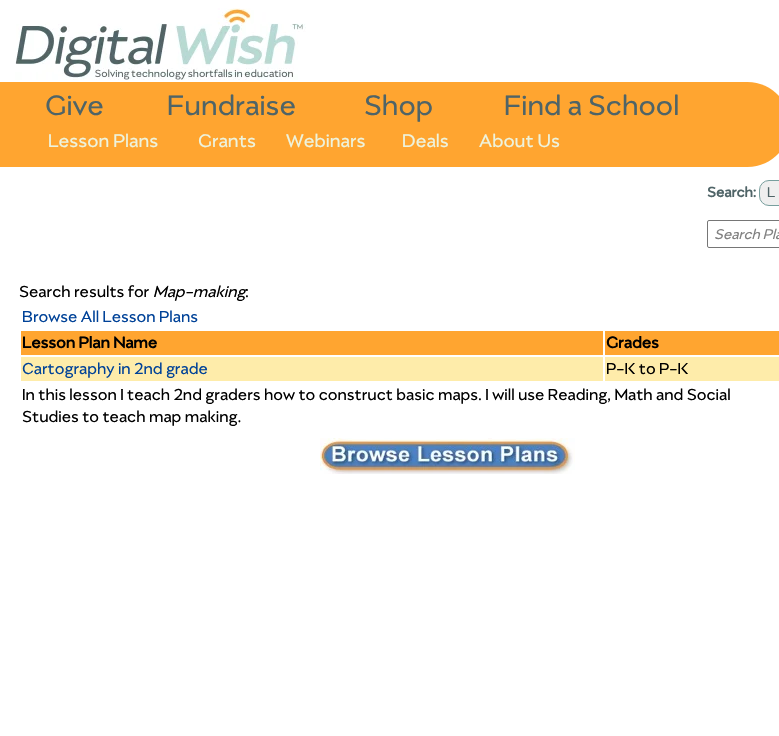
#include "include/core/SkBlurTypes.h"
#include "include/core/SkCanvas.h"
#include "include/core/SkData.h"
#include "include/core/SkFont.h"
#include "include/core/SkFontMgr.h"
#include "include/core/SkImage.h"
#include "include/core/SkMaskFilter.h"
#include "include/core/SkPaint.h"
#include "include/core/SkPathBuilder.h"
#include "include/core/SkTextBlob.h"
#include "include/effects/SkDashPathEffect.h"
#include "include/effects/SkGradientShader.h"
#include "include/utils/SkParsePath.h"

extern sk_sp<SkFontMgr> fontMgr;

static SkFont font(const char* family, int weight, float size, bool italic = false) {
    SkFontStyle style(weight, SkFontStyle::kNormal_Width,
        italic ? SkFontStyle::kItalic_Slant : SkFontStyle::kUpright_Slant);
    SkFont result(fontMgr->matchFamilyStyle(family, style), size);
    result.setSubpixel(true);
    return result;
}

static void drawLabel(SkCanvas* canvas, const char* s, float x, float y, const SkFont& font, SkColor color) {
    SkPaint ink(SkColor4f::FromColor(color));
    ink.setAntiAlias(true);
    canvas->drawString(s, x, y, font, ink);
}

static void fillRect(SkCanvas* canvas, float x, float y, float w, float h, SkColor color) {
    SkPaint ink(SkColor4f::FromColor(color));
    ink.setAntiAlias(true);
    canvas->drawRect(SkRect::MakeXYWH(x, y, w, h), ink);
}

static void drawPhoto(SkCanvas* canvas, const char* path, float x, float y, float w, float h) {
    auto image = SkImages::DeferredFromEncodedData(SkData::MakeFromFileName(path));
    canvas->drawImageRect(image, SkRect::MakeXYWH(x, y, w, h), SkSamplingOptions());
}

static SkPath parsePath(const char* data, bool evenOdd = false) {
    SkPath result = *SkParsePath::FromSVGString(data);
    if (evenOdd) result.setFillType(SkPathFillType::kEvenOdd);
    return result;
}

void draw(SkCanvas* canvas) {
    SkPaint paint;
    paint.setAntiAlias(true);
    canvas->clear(0xFFFFFFFF);
    drawPhoto(canvas, "assets/img1.png", 15, 8, 291, 72);
    paint.setColor(0xFFFFA530);
    canvas->drawPath(parsePath("M0 82H747.5C771 82 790 101 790 124.5C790 148 771 167 747.5 167H0Z"), paint);
    SkFont font1 = font("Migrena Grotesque", 400, 32);
    drawLabel(canvas, "Give", 45, 115, font1, 0xFF4F6467);
    drawLabel(canvas, "Fundraise", 167, 115, font1, 0xFF4F6467);
    drawLabel(canvas, "Shop", 364, 115, font1, 0xFF4F6467);
    drawLabel(canvas, "Find a School", 504, 115, font1, 0xFF4F6467);
    SkFont font2 = font("Migrena Grotesque", 400, 20.75f);
    drawLabel(canvas, "Lesson Plans", 48, 147, font2, 0xFFEEF3DC);
    drawLabel(canvas, "Grants", 198, 147, font2, 0xFFEEF3DC);
    drawLabel(canvas, "Webinars", 286, 147, font2, 0xFFEEF3DC);
    drawLabel(canvas, "Deals", 402, 147, font2, 0xFFEEF3DC);
    drawLabel(canvas, "About Us", 479, 147, font2, 0xFFEEF3DC);
    SkFont font3 = font("Migrena Grotesque", 700, 16);
    drawLabel(canvas, "Search:", 707, 197, font3, 0xFF4F6467);
    paint.setColor(0xFFEFEFEF);
    canvas->drawRoundRect(SkRect::MakeXYWH(759.5f, 180.5f, 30, 25), 9.5f, 9.5f, paint);
    paint.setStroke(true);
    paint.setStrokeWidth(1);
    paint.setColor(0xFF789F9E);
    canvas->drawRoundRect(SkRect::MakeXYWH(759.5f, 180.5f, 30, 25), 9.5f, 9.5f, paint);
    SkFont font4 = font("Migrena Grotesque", 400, 16);
    drawLabel(canvas, "L", 767, 197, font4, 0xFF4F6467);
    paint.setColor(0xFF767676);
    canvas->drawRoundRect(SkRect::MakeXYWH(707.5f, 220.5f, 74, 27), 1.5f, 1.5f, paint);
    SkFont font5 = font("Migrena Grotesque", 400, 16, true);
    drawLabel(canvas, "Search Pla", 714, 239, font5, 0xFF808080);
    SkFont font6 = font("Migrena Grotesque", 400, 18);
    drawLabel(canvas, "Search results for", 19, 297, font6, 0xFF000000);
    SkFont font7 = font("Migrena Grotesque", 400, 18, true);
    drawLabel(canvas, "Map-making", 153, 297, font7, 0xFF000000);
    drawLabel(canvas, ":", 245, 297, font6, 0xFF000000);
    drawLabel(canvas, "Browse All Lesson Plans", 22, 322, font6, 0xFF004298);
    fillRect(canvas, 21, 331, 582, 24, 0xFFFFA530);
    SkFont font8 = font("Migrena Grotesque", 700, 18);
    drawLabel(canvas, "Lesson Plan Name", 22, 348, font8, 0xFF000000);
    fillRect(canvas, 605, 331, 174, 24, 0xFFFFA530);
    drawLabel(canvas, "Grades", 606, 348, font8, 0xFF000000);
    fillRect(canvas, 21, 357, 582, 24, 0xFFFEECAA);
    drawLabel(canvas, "Cartography in 2nd grade", 22, 374, font6, 0xFF004298);
    fillRect(canvas, 605, 357, 174, 24, 0xFFFEECAA);
    drawLabel(canvas, "P-K to P-K", 606, 374, font6, 0xFF000000);
    drawLabel(canvas, "In this lesson I teach 2nd graders how to construct basic maps. I will use Reading, Math and Social", 22, 400, font6, 0xFF000000);
    drawLabel(canvas, "Studies to teach map making.", 22, 422, font6, 0xFF000000);
    drawPhoto(canvas, "assets/img2.png", 320, 438, 255, 36);
}
